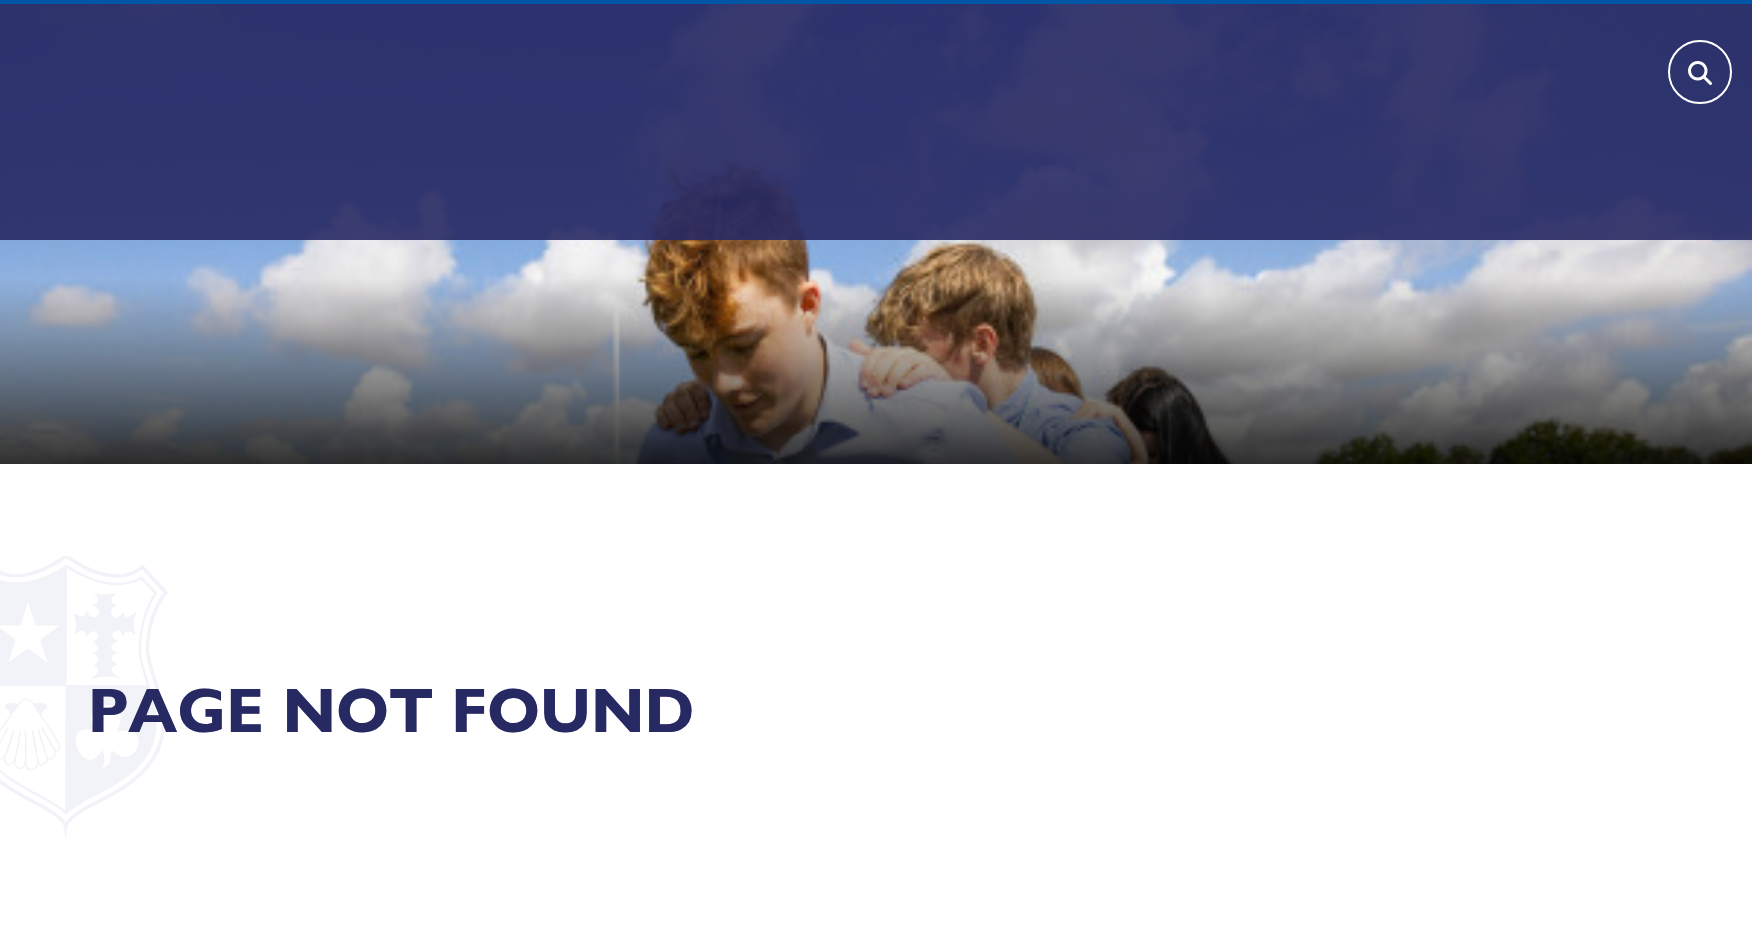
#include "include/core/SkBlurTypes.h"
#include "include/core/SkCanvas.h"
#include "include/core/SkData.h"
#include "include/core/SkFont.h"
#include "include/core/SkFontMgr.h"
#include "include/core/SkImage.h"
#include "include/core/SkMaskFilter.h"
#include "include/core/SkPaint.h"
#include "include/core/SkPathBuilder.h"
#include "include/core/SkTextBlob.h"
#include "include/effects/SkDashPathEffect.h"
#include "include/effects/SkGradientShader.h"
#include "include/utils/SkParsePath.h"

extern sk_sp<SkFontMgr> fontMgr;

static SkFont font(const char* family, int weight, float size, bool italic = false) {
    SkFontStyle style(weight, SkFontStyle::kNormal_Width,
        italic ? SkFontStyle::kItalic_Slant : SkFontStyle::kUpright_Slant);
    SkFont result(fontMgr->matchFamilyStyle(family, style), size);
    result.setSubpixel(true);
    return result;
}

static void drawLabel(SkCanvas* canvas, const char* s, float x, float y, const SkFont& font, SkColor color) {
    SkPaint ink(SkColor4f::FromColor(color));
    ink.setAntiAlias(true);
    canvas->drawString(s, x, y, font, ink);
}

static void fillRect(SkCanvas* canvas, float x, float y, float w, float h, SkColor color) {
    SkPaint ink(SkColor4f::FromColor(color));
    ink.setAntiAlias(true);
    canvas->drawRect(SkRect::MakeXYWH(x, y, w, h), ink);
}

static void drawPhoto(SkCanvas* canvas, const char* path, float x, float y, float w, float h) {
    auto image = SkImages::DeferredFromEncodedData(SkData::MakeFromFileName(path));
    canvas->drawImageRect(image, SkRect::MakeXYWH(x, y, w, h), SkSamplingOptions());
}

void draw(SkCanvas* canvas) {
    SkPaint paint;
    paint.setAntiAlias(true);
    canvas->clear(0xFFFFFFFF);
    fillRect(canvas, 0, 0, 1752, 4, 0xFF0056A6);
    drawPhoto(canvas, "assets/img1.png", 0, 4, 1752, 460);
    fillRect(canvas, 0, 4, 1752, 236, 0xE6272963);
    paint.setStroke(true);
    paint.setStrokeWidth(2);
    paint.setColor(0xFFFFFFFF);
    canvas->drawCircle(1700, 72, 31, paint);
    drawPhoto(canvas, "assets/img2.png", 1688, 61, 24, 24);
    drawPhoto(canvas, "assets/img3.png", 0, 556, 168, 280);
    SkFont font1 = font("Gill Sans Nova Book", 700, 63);
    drawLabel(canvas, "PAGE NOT FOUND", 88, 732, font1, 0xFF272963);
}
